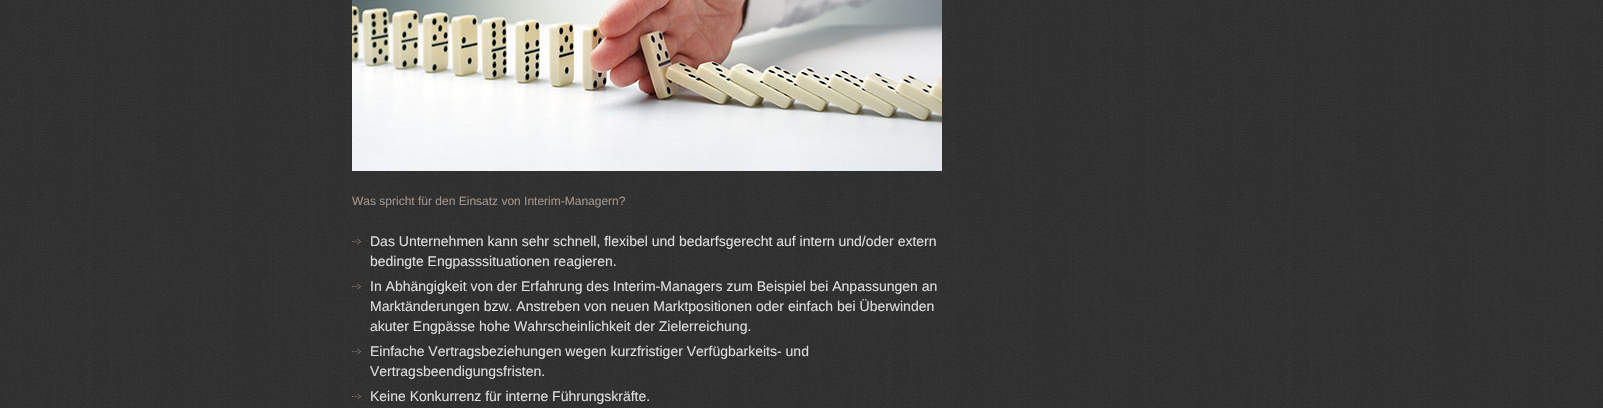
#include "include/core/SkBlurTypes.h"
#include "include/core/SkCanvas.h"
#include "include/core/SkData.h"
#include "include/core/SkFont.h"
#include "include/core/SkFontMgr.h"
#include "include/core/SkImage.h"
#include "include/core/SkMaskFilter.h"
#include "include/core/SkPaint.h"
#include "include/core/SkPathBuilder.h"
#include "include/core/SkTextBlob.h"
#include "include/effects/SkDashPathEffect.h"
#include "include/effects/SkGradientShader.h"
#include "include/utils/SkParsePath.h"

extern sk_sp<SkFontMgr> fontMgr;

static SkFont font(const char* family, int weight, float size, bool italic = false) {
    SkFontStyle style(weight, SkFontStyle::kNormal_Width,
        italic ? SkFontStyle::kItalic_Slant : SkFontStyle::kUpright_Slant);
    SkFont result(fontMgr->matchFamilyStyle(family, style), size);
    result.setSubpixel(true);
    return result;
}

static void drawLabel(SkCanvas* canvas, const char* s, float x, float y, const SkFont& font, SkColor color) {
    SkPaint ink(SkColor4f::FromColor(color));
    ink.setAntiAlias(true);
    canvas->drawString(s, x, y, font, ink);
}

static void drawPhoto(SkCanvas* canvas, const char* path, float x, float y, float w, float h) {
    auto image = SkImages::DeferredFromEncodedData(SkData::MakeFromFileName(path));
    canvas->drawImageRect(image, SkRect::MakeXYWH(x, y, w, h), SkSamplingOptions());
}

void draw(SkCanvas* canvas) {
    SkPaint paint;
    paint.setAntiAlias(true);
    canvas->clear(0xFFFFFFFF);
    drawPhoto(canvas, "assets/img1.png", 0, 0, 1603, 408);
    drawPhoto(canvas, "assets/img2.png", 352, 0, 590, 171);
    SkFont font1 = font("Liberation Sans", 400, 12);
    drawLabel(canvas, "Was spricht für den Einsatz von Interim-Managern?", 352, 205, font1, 0xFFA1958C);
    drawPhoto(canvas, "assets/img3.png", 352, 239, 9, 5);
    SkFont font2 = font("Liberation Sans", 400, 14);
    drawLabel(canvas, "Das Unternehmen kann sehr schnell, flexibel und bedarfsgerecht auf intern und/oder extern", 370, 246, font2, 0xFFDDDDDD);
    drawLabel(canvas, "bedingte Engpasssituationen reagieren.", 370, 266, font2, 0xFFDDDDDD);
    drawPhoto(canvas, "assets/img4.png", 352, 284, 9, 5);
    drawLabel(canvas, "In Abhängigkeit von der Erfahrung des Interim-Managers zum Beispiel bei Anpassungen an", 370, 291, font2, 0xFFDDDDDD);
    drawLabel(canvas, "Marktänderungen bzw. Anstreben von neuen Marktpositionen oder einfach bei Überwinden", 370, 311, font2, 0xFFDDDDDD);
    drawLabel(canvas, "akuter Engpässe hohe Wahrscheinlichkeit der Zielerreichung.", 370, 331, font2, 0xFFDDDDDD);
    drawPhoto(canvas, "assets/img5.png", 352, 349, 9, 5);
    drawLabel(canvas, "Einfache Vertragsbeziehungen wegen kurzfristiger Verfügbarkeits- und", 370, 356, font2, 0xFFDDDDDD);
    drawLabel(canvas, "Vertragsbeendigungsfristen.", 370, 376, font2, 0xFFDDDDDD);
    drawPhoto(canvas, "assets/img6.png", 352, 394, 9, 5);
    drawLabel(canvas, "Keine Konkurrenz für interne Führungskräfte.", 370, 401, font2, 0xFFDDDDDD);
}
